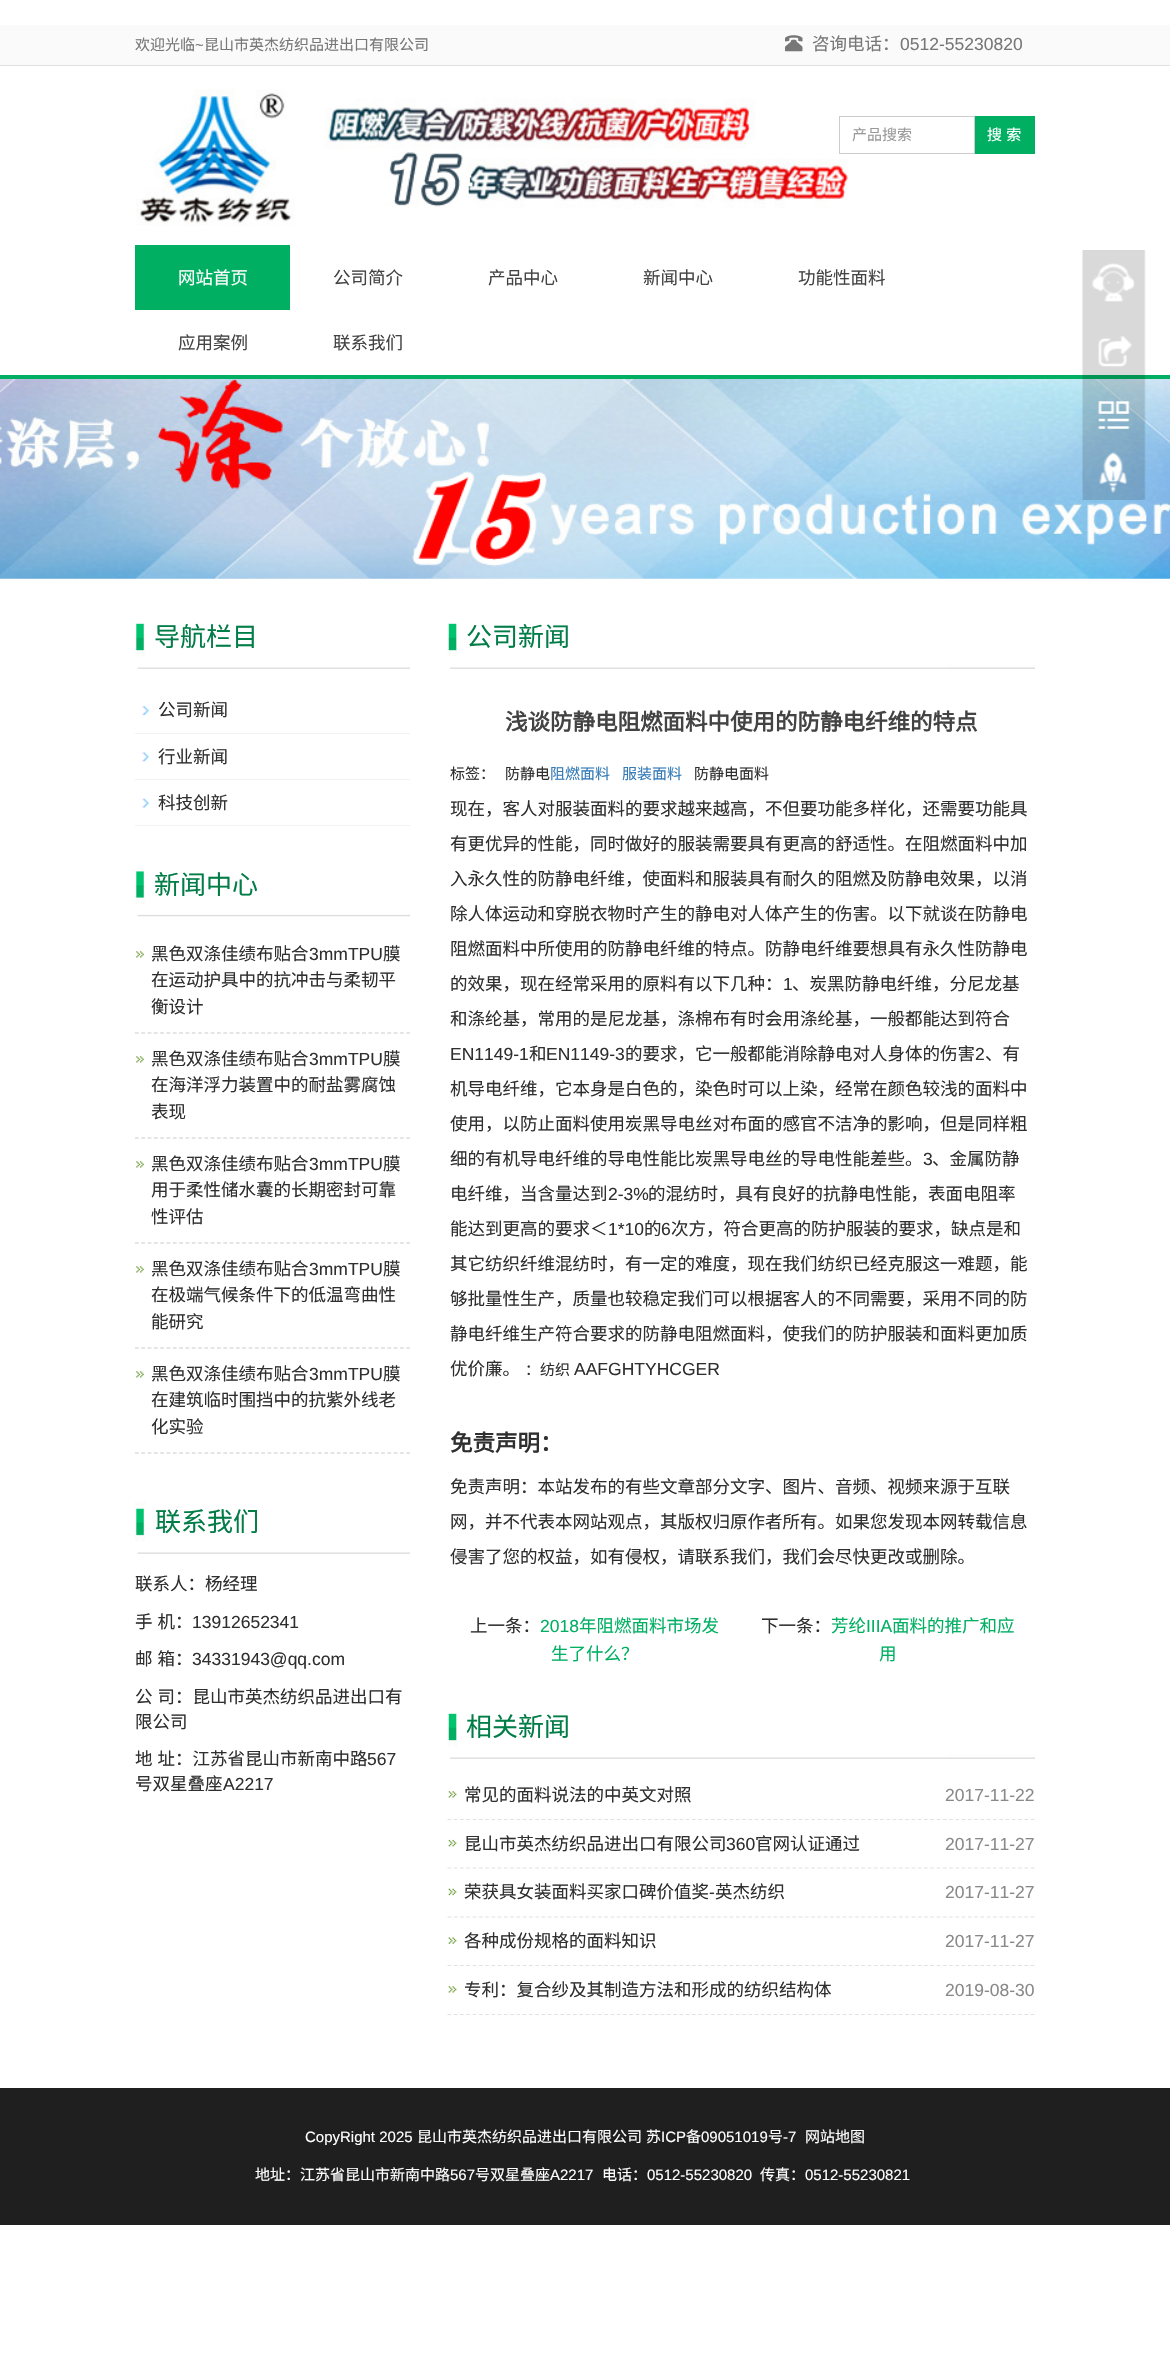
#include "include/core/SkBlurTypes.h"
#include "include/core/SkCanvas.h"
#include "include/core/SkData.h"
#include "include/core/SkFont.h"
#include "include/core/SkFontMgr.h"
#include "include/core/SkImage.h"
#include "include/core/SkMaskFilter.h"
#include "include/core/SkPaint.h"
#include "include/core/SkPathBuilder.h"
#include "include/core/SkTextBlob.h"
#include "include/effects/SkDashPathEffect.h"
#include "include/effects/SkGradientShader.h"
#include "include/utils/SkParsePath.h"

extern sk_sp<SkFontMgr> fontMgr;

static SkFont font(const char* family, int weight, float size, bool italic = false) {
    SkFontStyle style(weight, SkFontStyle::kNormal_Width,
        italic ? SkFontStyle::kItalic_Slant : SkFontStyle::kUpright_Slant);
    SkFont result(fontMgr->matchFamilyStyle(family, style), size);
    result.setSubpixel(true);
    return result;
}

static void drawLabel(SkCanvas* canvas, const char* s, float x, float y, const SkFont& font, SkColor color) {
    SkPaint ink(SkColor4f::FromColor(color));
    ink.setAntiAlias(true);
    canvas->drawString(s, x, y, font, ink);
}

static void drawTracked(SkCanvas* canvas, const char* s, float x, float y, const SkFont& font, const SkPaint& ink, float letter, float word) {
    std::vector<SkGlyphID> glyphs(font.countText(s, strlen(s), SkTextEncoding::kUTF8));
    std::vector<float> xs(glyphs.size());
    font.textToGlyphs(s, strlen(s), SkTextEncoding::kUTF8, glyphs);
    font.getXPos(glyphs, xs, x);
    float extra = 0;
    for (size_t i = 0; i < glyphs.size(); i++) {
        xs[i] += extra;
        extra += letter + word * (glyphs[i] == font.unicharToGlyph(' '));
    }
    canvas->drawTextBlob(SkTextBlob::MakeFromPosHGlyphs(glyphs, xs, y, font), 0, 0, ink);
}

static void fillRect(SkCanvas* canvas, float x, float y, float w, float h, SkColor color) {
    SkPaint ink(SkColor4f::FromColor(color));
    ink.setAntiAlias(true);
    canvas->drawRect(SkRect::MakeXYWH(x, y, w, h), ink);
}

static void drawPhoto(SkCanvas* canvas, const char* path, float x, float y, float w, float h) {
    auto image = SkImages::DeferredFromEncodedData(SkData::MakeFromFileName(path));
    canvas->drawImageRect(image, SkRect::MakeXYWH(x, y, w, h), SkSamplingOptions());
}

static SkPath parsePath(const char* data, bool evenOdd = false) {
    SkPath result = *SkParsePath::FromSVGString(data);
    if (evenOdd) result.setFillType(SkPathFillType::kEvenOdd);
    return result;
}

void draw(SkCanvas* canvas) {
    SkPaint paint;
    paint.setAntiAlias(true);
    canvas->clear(0xFFFFFFFF);
    fillRect(canvas, 0, 25, 1170, 40, 0xFFFAFAFA);
    fillRect(canvas, 0, 65, 1170, 1, 0xFFDFE1E3);
    SkFont font1 = font("Noto Sans CJK SC", 400, 15);
    drawLabel(canvas, "欢迎光临", 135, 50, font1, 0xFF777777);
    SkFont font2 = font("Liberation Sans", 400, 15);
    drawLabel(canvas, "~", 195, 50, font2, 0xFF777777);
    drawLabel(canvas, "昆山市英杰纺织品进出口有限公司", 204, 50, font1, 0xFF777777);
    drawPhoto(canvas, "assets/img1.png", 785, 35, 18, 17);
    SkFont font3 = font("Noto Sans CJK SC", 400, 17.5f);
    drawLabel(canvas, "咨询电话：", 812, 50, font3, 0xFF777777);
    SkFont font4 = font("Liberation Sans", 400, 17.5f);
    drawLabel(canvas, "0512-55230820", 900, 50, font4, 0xFF777777);
    drawPhoto(canvas, "assets/img2.png", 136, 88, 712, 138);
    paint.setStroke(true);
    paint.setStrokeWidth(1);
    paint.setColor(0xFFCCCCCC);
    canvas->drawRect(SkRect::MakeXYWH(839.5f, 116.5f, 135, 37), paint);
    drawLabel(canvas, "产品搜索", 852, 140, font1, 0xFF999999);
    fillRect(canvas, 975, 116, 60, 38, 0xFF01AF63);
    paint.setStroke(false);
    paint.setColor(0xFFFFFFFF);
    drawTracked(canvas, "搜 索", 987, 140, font1, paint, 0, 1);
    fillRect(canvas, 0, 375, 1170, 4, 0xFF01AF63);
    fillRect(canvas, 135, 245, 155, 65, 0xFF01AF63);
    drawLabel(canvas, "网站首页", 178, 284, font3, 0xFFFFFFFF);
    drawLabel(canvas, "公司简介", 333, 284, font3, 0xFF434343);
    drawLabel(canvas, "产品中心", 488, 284, font3, 0xFF434343);
    drawLabel(canvas, "新闻中心", 643, 284, font3, 0xFF434343);
    drawLabel(canvas, "功能性面料", 798, 284, font3, 0xFF434343);
    drawLabel(canvas, "应用案例", 178, 349, font3, 0xFF434343);
    drawLabel(canvas, "联系我们", 333, 349, font3, 0xFF434343);
    drawPhoto(canvas, "assets/img4.png", 0, 379, 1170, 200);
    drawPhoto(canvas, "assets/img3.png", 1082, 250, 64, 250);
    drawPhoto(canvas, "assets/img5.png", 135, 623, 275, 46);
    SkFont font5 = font("Noto Sans CJK SC", 400, 26);
    drawLabel(canvas, "导航栏目", 154, 646, font5, 0xFF027D47);
    drawPhoto(canvas, "assets/img6.png", 142, 706, 7, 9);
    fillRect(canvas, 135, 733, 275, 1, 0xFFF2F2F2);
    drawLabel(canvas, "公司新闻", 158, 716, font3, 0xFF2F2F2F);
    drawPhoto(canvas, "assets/img7.png", 142, 752, 7, 10);
    fillRect(canvas, 135, 779, 275, 1, 0xFFF2F2F2);
    drawLabel(canvas, "行业新闻", 158, 763, font3, 0xFF2F2F2F);
    drawPhoto(canvas, "assets/img8.png", 142, 798, 7, 10);
    fillRect(canvas, 135, 825, 275, 1, 0xFFF2F2F2);
    drawLabel(canvas, "科技创新", 158, 809, font3, 0xFF2F2F2F);
    drawPhoto(canvas, "assets/img9.png", 135, 870, 275, 47);
    drawLabel(canvas, "新闻中心", 154, 894, font5, 0xFF027D47);
    drawPhoto(canvas, "assets/img10.png", 136, 951, 8, 7);
    paint.setStroke(true);
    paint.setStrokeWidth(1.2f);
    paint.setColor(0xFFCCCCCC);
    paint.setPathEffect(SkDashPathEffect::Make({{3.75f, 2.56f}}, 0));
    canvas->drawPath(parsePath("M135 1033H410"), paint);
    paint.setPathEffect(nullptr);
    drawLabel(canvas, "黑色双涤佳绩布贴合", 151, 960, font3, 0xFF2F2F2F);
    drawLabel(canvas, "3mmTPU", 309, 960, font4, 0xFF2F2F2F);
    drawLabel(canvas, "膜", 383, 960, font3, 0xFF2F2F2F);
    drawLabel(canvas, "在运动护具中的抗冲击与柔韧平", 151, 986, font3, 0xFF2F2F2F);
    drawLabel(canvas, "衡设计", 151, 1013, font3, 0xFF2F2F2F);
    drawPhoto(canvas, "assets/img10.png", 136, 1056, 8, 7);
    paint.setPathEffect(SkDashPathEffect::Make({{3.75f, 2.56f}}, 0));
    canvas->drawPath(parsePath("M135 1138H410"), paint);
    paint.setPathEffect(nullptr);
    drawLabel(canvas, "黑色双涤佳绩布贴合", 151, 1065, font3, 0xFF2F2F2F);
    drawLabel(canvas, "3mmTPU", 309, 1065, font4, 0xFF2F2F2F);
    drawLabel(canvas, "膜", 383, 1065, font3, 0xFF2F2F2F);
    drawLabel(canvas, "在海洋浮力装置中的耐盐雾腐蚀", 151, 1091, font3, 0xFF2F2F2F);
    drawLabel(canvas, "表现", 151, 1118, font3, 0xFF2F2F2F);
    drawPhoto(canvas, "assets/img10.png", 136, 1161, 8, 7);
    paint.setPathEffect(SkDashPathEffect::Make({{3.75f, 2.56f}}, 0));
    canvas->drawPath(parsePath("M135 1243H410"), paint);
    paint.setPathEffect(nullptr);
    drawLabel(canvas, "黑色双涤佳绩布贴合", 151, 1170, font3, 0xFF2F2F2F);
    drawLabel(canvas, "3mmTPU", 309, 1170, font4, 0xFF2F2F2F);
    drawLabel(canvas, "膜", 383, 1170, font3, 0xFF2F2F2F);
    drawLabel(canvas, "用于柔性储水囊的长期密封可靠", 151, 1196, font3, 0xFF2F2F2F);
    drawLabel(canvas, "性评估", 151, 1223, font3, 0xFF2F2F2F);
    drawPhoto(canvas, "assets/img10.png", 136, 1266, 8, 7);
    paint.setPathEffect(SkDashPathEffect::Make({{3.75f, 2.56f}}, 0));
    canvas->drawPath(parsePath("M135 1348H410"), paint);
    paint.setPathEffect(nullptr);
    drawLabel(canvas, "黑色双涤佳绩布贴合", 151, 1275, font3, 0xFF2F2F2F);
    drawLabel(canvas, "3mmTPU", 309, 1275, font4, 0xFF2F2F2F);
    drawLabel(canvas, "膜", 383, 1275, font3, 0xFF2F2F2F);
    drawLabel(canvas, "在极端气候条件下的低温弯曲性", 151, 1301, font3, 0xFF2F2F2F);
    drawLabel(canvas, "能研究", 151, 1328, font3, 0xFF2F2F2F);
    drawPhoto(canvas, "assets/img10.png", 136, 1371, 8, 7);
    paint.setPathEffect(SkDashPathEffect::Make({{3.75f, 2.56f}}, 0));
    canvas->drawPath(parsePath("M135 1453H410"), paint);
    paint.setPathEffect(nullptr);
    drawLabel(canvas, "黑色双涤佳绩布贴合", 151, 1380, font3, 0xFF2F2F2F);
    drawLabel(canvas, "3mmTPU", 309, 1380, font4, 0xFF2F2F2F);
    drawLabel(canvas, "膜", 383, 1380, font3, 0xFF2F2F2F);
    drawLabel(canvas, "在建筑临时围挡中的抗紫外线老", 151, 1406, font3, 0xFF2F2F2F);
    drawLabel(canvas, "化实验", 151, 1433, font3, 0xFF2F2F2F);
    drawPhoto(canvas, "assets/img11.png", 135, 1501, 275, 53);
    drawLabel(canvas, "联系我们", 155, 1531, font5, 0xFF027D47);
    drawLabel(canvas, "联系人：杨经理", 135, 1590, font3, 0xFF2F2F2F);
    paint.setStroke(false);
    paint.setColor(0xFF2F2F2F);
    drawTracked(canvas, "手 机：", 135, 1628, font3, paint, 0, 1);
    drawLabel(canvas, "13912652341", 192, 1628, font4, 0xFF2F2F2F);
    drawTracked(canvas, "邮 箱：", 135, 1665, font3, paint, 0, 1);
    drawLabel(canvas, "34331943@qq.com", 192, 1665, font4, 0xFF2F2F2F);
    drawTracked(canvas, "公 司：昆山市英杰纺织品进出口有", 135, 1703, font3, paint, 0, 1);
    drawLabel(canvas, "限公司", 135, 1728, font3, 0xFF2F2F2F);
    drawTracked(canvas, "地 址：江苏省昆山市新南中路", 135, 1765, font3, paint, 0, 1);
    drawLabel(canvas, "567", 367, 1765, font4, 0xFF2F2F2F);
    drawLabel(canvas, "号双星叠座", 135, 1790, font3, 0xFF2F2F2F);
    drawLabel(canvas, "A2217", 223, 1790, font4, 0xFF2F2F2F);
    drawPhoto(canvas, "assets/img12.png", 447, 623, 588, 46);
    drawLabel(canvas, "公司新闻", 466, 646, font5, 0xFF027D47);
    SkFont font6 = font("Noto Sans CJK SC", 700, 22.5f);
    drawLabel(canvas, "浅谈防静电阻燃面料中使用的防静电纤维的特点", 505, 730, font6, 0xFF434343);
    drawLabel(canvas, "标签：", 450, 779, font1, 0xFF2F2F2F);
    drawLabel(canvas, "防静电", 505, 779, font1, 0xFF2F2F2F);
    drawLabel(canvas, "阻燃面料", 550, 779, font1, 0xFF337AB7);
    drawLabel(canvas, "服装面料", 622, 779, font1, 0xFF337AB7);
    drawLabel(canvas, "防静电面料", 694, 779, font1, 0xFF2F2F2F);
    drawLabel(canvas, "现在，客人对服装面料的要求越来越高，不但要功能多样化，还需要功能具", 450, 815, font3, 0xFF2F2F2F);
    drawLabel(canvas, "有更优异的性能，同时做好的服装需要具有更高的舒适性。在阻燃面料中加", 450, 850, font3, 0xFF2F2F2F);
    drawLabel(canvas, "入永久性的防静电纤维，使面料和服装具有耐久的阻燃及防静电效果，以消", 450, 885, font3, 0xFF2F2F2F);
    drawLabel(canvas, "除人体运动和穿脱衣物时产生的静电对人体产生的伤害。以下就谈在防静电", 450, 920, font3, 0xFF2F2F2F);
    drawLabel(canvas, "阻燃面料中所使用的防静电纤维的特点。防静电纤维要想具有永久性防静电", 450, 955, font3, 0xFF2F2F2F);
    drawLabel(canvas, "的效果，现在经常采用的原料有以下几种：", 450, 990, font3, 0xFF2F2F2F);
    drawLabel(canvas, "1", 783, 990, font4, 0xFF2F2F2F);
    drawLabel(canvas, "、炭黑防静电纤维，分尼龙基", 792, 990, font3, 0xFF2F2F2F);
    drawLabel(canvas, "和涤纶基，常用的是尼龙基，涤棉布有时会用涤纶基，一般都能达到符合", 450, 1025, font3, 0xFF2F2F2F);
    drawLabel(canvas, "EN1149-1", 450, 1060, font4, 0xFF2F2F2F);
    drawLabel(canvas, "和", 529, 1060, font3, 0xFF2F2F2F);
    drawLabel(canvas, "EN1149-3", 546, 1060, font4, 0xFF2F2F2F);
    drawLabel(canvas, "的要求，它一般都能消除静电对人身体的伤害", 625, 1060, font3, 0xFF2F2F2F);
    drawLabel(canvas, "2", 975, 1060, font4, 0xFF2F2F2F);
    drawLabel(canvas, "、有", 985, 1060, font3, 0xFF2F2F2F);
    drawLabel(canvas, "机导电纤维，它本身是白色的，染色时可以上染，经常在颜色较浅的面料中", 450, 1095, font3, 0xFF2F2F2F);
    drawLabel(canvas, "使用，以防止面料使用炭黑导电丝对布面的感官不洁净的影响，但是同样粗", 450, 1130, font3, 0xFF2F2F2F);
    drawLabel(canvas, "细的有机导电纤维的导电性能比炭黑导电丝的导电性能差些。", 450, 1165, font3, 0xFF2F2F2F);
    drawLabel(canvas, "3", 923, 1165, font4, 0xFF2F2F2F);
    drawLabel(canvas, "、金属防静", 932, 1165, font3, 0xFF2F2F2F);
    drawLabel(canvas, "电纤维，当含量达到", 450, 1200, font3, 0xFF2F2F2F);
    drawLabel(canvas, "2-3%", 608, 1200, font4, 0xFF2F2F2F);
    drawLabel(canvas, "的混纺时，具有良好的抗静电性能，表面电阻率", 648, 1200, font3, 0xFF2F2F2F);
    drawLabel(canvas, "能达到更高的要求＜", 450, 1235, font3, 0xFF2F2F2F);
    drawLabel(canvas, "1*10", 608, 1235, font4, 0xFF2F2F2F);
    drawLabel(canvas, "的", 644, 1235, font3, 0xFF2F2F2F);
    drawLabel(canvas, "6", 661, 1235, font4, 0xFF2F2F2F);
    drawLabel(canvas, "次方，符合更高的防护服装的要求，缺点是和", 671, 1235, font3, 0xFF2F2F2F);
    drawLabel(canvas, "其它纺织纤维混纺时，有一定的难度，现在我们纺织已经克服这一难题，能", 450, 1270, font3, 0xFF2F2F2F);
    drawLabel(canvas, "够批量性生产，质量也较稳定我们可以根据客人的不同需要，采用不同的防", 450, 1305, font3, 0xFF2F2F2F);
    drawLabel(canvas, "静电纤维生产符合要求的防静电阻燃面料，使我们的防护服装和面料更加质", 450, 1340, font3, 0xFF2F2F2F);
    drawLabel(canvas, "优价廉。", 450, 1375, font3, 0xFF2F2F2F);
    drawLabel(canvas, "：纺织", 525, 1375, font1, 0xFF2F2F2F);
    drawLabel(canvas, "AAFGHTYHCGER", 574, 1375, font4, 0xFF2F2F2F);
    drawLabel(canvas, "免责声明：", 450, 1451, font6, 0xFF2F2F2F);
    drawLabel(canvas, "免责声明：本站发布的有些文章部分文字、图片、音频、视频来源于互联", 450, 1493, font3, 0xFF2F2F2F);
    drawLabel(canvas, "网，并不代表本网站观点，其版权归原作者所有。如果您发现本网转载信息", 450, 1528, font3, 0xFF2F2F2F);
    drawLabel(canvas, "侵害了您的权益，如有侵权，请联系我们，我们会尽快更改或删除。", 450, 1563, font3, 0xFF2F2F2F);
    drawLabel(canvas, "上一条：", 470, 1632, font3, 0xFF2F2F2F);
    drawLabel(canvas, "2018", 540, 1632, font4, 0xFF01AF63);
    drawLabel(canvas, "年阻燃面料市场发", 579, 1632, font3, 0xFF01AF63);
    drawLabel(canvas, "生了什么？", 551, 1660, font3, 0xFF01AF63);
    drawLabel(canvas, "下一条：", 761, 1632, font3, 0xFF2F2F2F);
    drawLabel(canvas, "芳纶", 831, 1632, font3, 0xFF01AF63);
    drawLabel(canvas, "IIIA", 866, 1632, font4, 0xFF01AF63);
    drawLabel(canvas, "面料的推广和应", 892, 1632, font3, 0xFF01AF63);
    drawLabel(canvas, "用", 879, 1660, font3, 0xFF01AF63);
    drawPhoto(canvas, "assets/img12.png", 447, 1713, 588, 46);
    drawLabel(canvas, "相关新闻", 466, 1736, font5, 0xFF027D47);
    drawPhoto(canvas, "assets/img13.png", 448, 1791, 9, 7);
    paint.setStroke(true);
    paint.setColor(0xFFE3E2E2);
    paint.setPathEffect(SkDashPathEffect::Make({{3.75f, 2.52f}}, 0));
    canvas->drawPath(parsePath("M447.5 1819.5H1035"), paint);
    paint.setPathEffect(nullptr);
    drawLabel(canvas, "常见的面料说法的中英文对照", 464, 1801, font3, 0xFF2F2F2F);
    drawLabel(canvas, "2017-11-22", 945, 1801, font4, 0xFF898989);
    drawPhoto(canvas, "assets/img14.png", 448, 1839, 9, 8);
    paint.setPathEffect(SkDashPathEffect::Make({{3.75f, 2.52f}}, 0));
    canvas->drawPath(parsePath("M447.5 1868H1035"), paint);
    paint.setPathEffect(nullptr);
    drawLabel(canvas, "昆山市英杰纺织品进出口有限公司", 464, 1850, font3, 0xFF2F2F2F);
    drawLabel(canvas, "360", 726, 1850, font4, 0xFF2F2F2F);
    drawLabel(canvas, "官网认证通过", 755, 1850, font3, 0xFF2F2F2F);
    drawLabel(canvas, "2017-11-27", 945, 1850, font4, 0xFF898989);
    drawPhoto(canvas, "assets/img15.png", 448, 1888, 9, 8);
    paint.setPathEffect(SkDashPathEffect::Make({{3.75f, 2.52f}}, 0));
    canvas->drawPath(parsePath("M447.5 1917H1035"), paint);
    paint.setPathEffect(nullptr);
    drawLabel(canvas, "荣获具女装面料买家口碑价值奖", 464, 1898, font3, 0xFF2F2F2F);
    drawLabel(canvas, "-", 709, 1898, font4, 0xFF2F2F2F);
    drawLabel(canvas, "英杰纺织", 715, 1898, font3, 0xFF2F2F2F);
    drawLabel(canvas, "2017-11-27", 945, 1898, font4, 0xFF898989);
    drawPhoto(canvas, "assets/img16.png", 448, 1937, 9, 7);
    paint.setPathEffect(SkDashPathEffect::Make({{3.75f, 2.52f}}, 0));
    canvas->drawPath(parsePath("M447.5 1965.5H1035"), paint);
    paint.setPathEffect(nullptr);
    drawLabel(canvas, "各种成份规格的面料知识", 464, 1947, font3, 0xFF2F2F2F);
    drawLabel(canvas, "2017-11-27", 945, 1947, font4, 0xFF898989);
    drawPhoto(canvas, "assets/img13.png", 448, 1986, 9, 7);
    paint.setPathEffect(SkDashPathEffect::Make({{3.75f, 2.52f}}, 0));
    canvas->drawPath(parsePath("M447.5 2014.5H1035"), paint);
    paint.setPathEffect(nullptr);
    drawLabel(canvas, "专利：复合纱及其制造方法和形成的纺织结构体", 464, 1996, font3, 0xFF2F2F2F);
    drawLabel(canvas, "2019-08-30", 945, 1996, font4, 0xFF898989);
    fillRect(canvas, 0, 2088, 1170, 137, 0xFF1F1F1F);
    drawLabel(canvas, "CopyRight 2025", 305, 2142, font2, 0xFFFFFFFF);
    drawLabel(canvas, "昆山市英杰纺织品进出口有限公司", 417, 2142, font1, 0xFFFFFFFF);
    drawLabel(canvas, "苏", 646, 2142, font1, 0xFFFFFFFF);
    drawLabel(canvas, "ICP", 661, 2142, font2, 0xFFFFFFFF);
    drawLabel(canvas, "备", 686, 2142, font1, 0xFFFFFFFF);
    drawLabel(canvas, "09051019", 701, 2142, font2, 0xFFFFFFFF);
    drawLabel(canvas, "号", 768, 2142, font1, 0xFFFFFFFF);
    drawLabel(canvas, "-7", 783, 2142, font2, 0xFFFFFFFF);
    drawLabel(canvas, "网站地图", 805, 2142, font1, 0xFFFFFFFF);
    drawLabel(canvas, "地址：江苏省昆山市新南中路", 255, 2180, font1, 0xFFFFFFFF);
    drawLabel(canvas, "567", 450, 2180, font2, 0xFFFFFFFF);
    drawLabel(canvas, "号双星叠座", 475, 2180, font1, 0xFFFFFFFF);
    drawLabel(canvas, "A2217", 550, 2180, font2, 0xFFFFFFFF);
    drawLabel(canvas, "电话：", 602, 2180, font1, 0xFFFFFFFF);
    drawLabel(canvas, "0512-55230820", 647, 2180, font2, 0xFFFFFFFF);
    drawLabel(canvas, "传真：", 760, 2180, font1, 0xFFFFFFFF);
    drawLabel(canvas, "0512-55230821", 805, 2180, font2, 0xFFFFFFFF);
}
